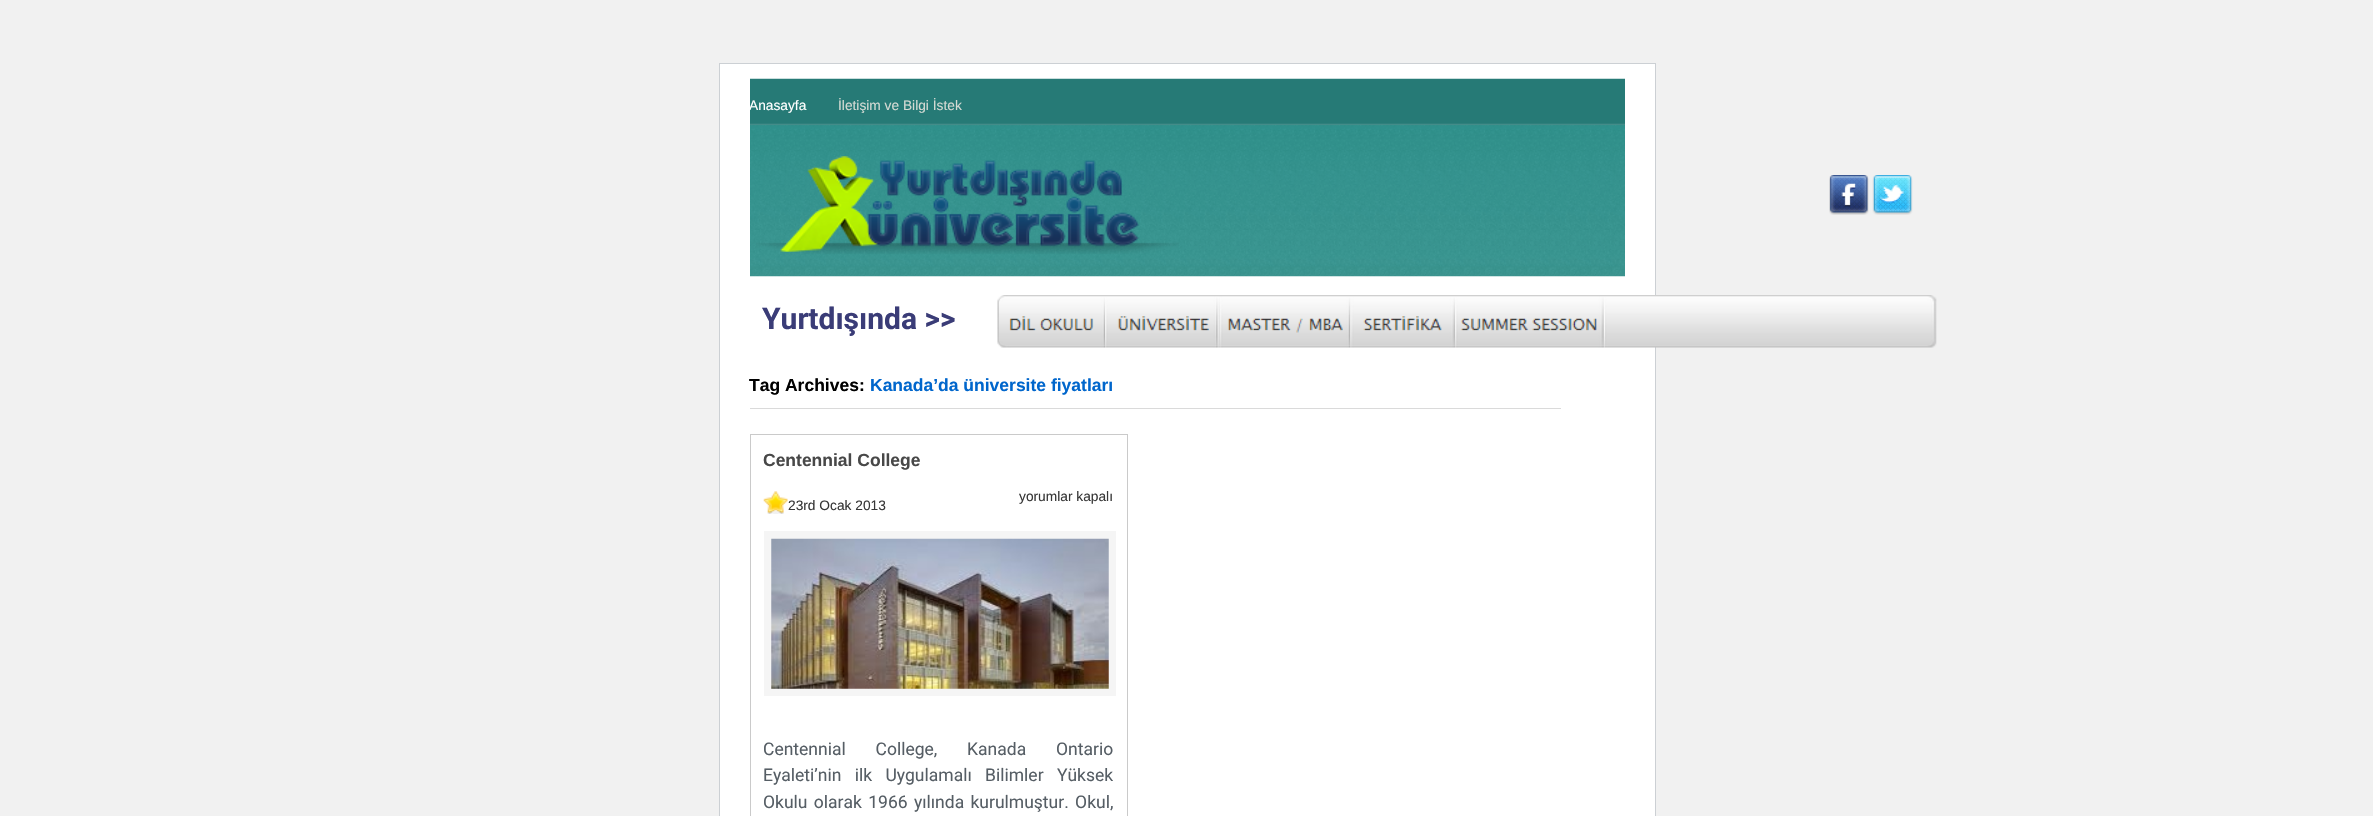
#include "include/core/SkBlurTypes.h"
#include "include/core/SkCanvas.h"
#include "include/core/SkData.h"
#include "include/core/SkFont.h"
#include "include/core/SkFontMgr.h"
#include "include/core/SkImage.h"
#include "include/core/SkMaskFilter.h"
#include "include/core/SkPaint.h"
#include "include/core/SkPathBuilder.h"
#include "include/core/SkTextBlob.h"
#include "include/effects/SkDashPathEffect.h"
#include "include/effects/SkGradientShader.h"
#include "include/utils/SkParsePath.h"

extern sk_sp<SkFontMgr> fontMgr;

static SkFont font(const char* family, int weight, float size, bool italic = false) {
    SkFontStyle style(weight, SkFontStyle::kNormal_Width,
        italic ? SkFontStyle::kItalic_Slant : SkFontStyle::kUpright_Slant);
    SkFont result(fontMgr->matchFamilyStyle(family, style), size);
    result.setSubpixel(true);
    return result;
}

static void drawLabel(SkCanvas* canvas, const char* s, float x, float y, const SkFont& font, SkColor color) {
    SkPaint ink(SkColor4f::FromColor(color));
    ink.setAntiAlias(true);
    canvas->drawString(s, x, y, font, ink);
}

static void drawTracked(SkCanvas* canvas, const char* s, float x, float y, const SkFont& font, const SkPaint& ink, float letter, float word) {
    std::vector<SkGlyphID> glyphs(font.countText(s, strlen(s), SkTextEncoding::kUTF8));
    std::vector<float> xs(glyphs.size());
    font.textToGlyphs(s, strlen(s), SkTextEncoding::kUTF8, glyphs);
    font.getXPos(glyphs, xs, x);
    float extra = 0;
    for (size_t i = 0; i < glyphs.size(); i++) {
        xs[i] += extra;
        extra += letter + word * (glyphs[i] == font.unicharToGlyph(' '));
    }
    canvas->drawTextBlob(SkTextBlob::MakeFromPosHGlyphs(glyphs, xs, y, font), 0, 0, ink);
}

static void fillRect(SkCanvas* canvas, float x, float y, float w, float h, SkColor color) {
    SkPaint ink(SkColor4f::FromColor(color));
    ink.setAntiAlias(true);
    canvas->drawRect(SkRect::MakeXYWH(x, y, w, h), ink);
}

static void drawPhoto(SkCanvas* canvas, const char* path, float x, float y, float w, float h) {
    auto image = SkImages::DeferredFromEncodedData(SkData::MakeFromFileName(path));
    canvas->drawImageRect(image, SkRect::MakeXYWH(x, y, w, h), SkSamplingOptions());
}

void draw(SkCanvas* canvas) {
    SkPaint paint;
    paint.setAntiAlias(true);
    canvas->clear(0xFFF1F1F1);
    paint.setColor(0xFFFFFFFF);
    canvas->drawRect(SkRect::MakeXYWH(719.5f, 63.5f, 936, 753), paint);
    paint.setStroke(true);
    paint.setStrokeWidth(1);
    paint.setColor(0xFFCCD0D4);
    canvas->drawRect(SkRect::MakeXYWH(719.5f, 63.5f, 936, 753), paint);
    drawPhoto(canvas, "assets/img1.png", 750, 78, 875, 199);
    SkFont font1 = font("Liberation Sans", 400, 13.75f);
    drawLabel(canvas, "Anasayfa", 749, 110, font1, 0xFFFFFFFF);
    drawLabel(canvas, "İletişim ve Bilgi İstek", 838, 110, font1, 0xFFD3DAD3);
    drawPhoto(canvas, "assets/img2.png", 756, 156, 423, 98);
    drawPhoto(canvas, "assets/img3.png", 1829, 175, 40, 40);
    drawPhoto(canvas, "assets/img4.png", 1872, 175, 41, 40);
    SkFont font2 = font("Roboto", 700, 30);
    drawLabel(canvas, "Yurtdışında >>", 762, 329, font2, 0xFF3A3C77);
    drawPhoto(canvas, "assets/img5.png", 997, 295, 940, 53);
    fillRect(canvas, 750, 408, 811, 1, 0xFFDADADA);
    SkFont font3 = font("Liberation Sans", 700, 17.5f);
    drawLabel(canvas, "Tag Archives:", 749, 391, font3, 0xFF000000);
    drawLabel(canvas, "Kanada’da üniversite fiyatları", 870, 391, font3, 0xFF0066CC);
    paint.setColor(0xFFCACACA);
    canvas->drawRect(SkRect::MakeXYWH(750.5f, 434.5f, 377, 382), paint);
    drawLabel(canvas, "Centennial College", 763, 466, font3, 0xFF484848);
    drawLabel(canvas, "yorumlar kapalı", 1019, 501, font1, 0xFF373737);
    drawPhoto(canvas, "assets/img6.png", 763, 491, 25, 23);
    drawLabel(canvas, "23rd Ocak 2013", 788, 510, font1, 0xFF373737);
    paint.setStrokeWidth(8);
    paint.setColor(0xFFF5F5F5);
    canvas->drawRect(SkRect::MakeXYWH(768, 535, 344, 157), paint);
    drawPhoto(canvas, "assets/img7.png", 771, 538, 338, 151);
    SkFont font4 = font("Roboto", 400, 17.5f);
    paint.setStroke(false);
    paint.setColor(0xFF565E65);
    drawTracked(canvas, "Centennial College, Kanada Ontario", 763, 755, font4, paint, 0, 25.5f);
    drawTracked(canvas, "Eyaleti’nin ilk Uygulamalı Bilimler Yüksek", 763, 781, font4, paint, 0, 9);
    drawTracked(canvas, "Okulu olarak 1966 yılında kurulmuştur. Okul,", 763, 808, font4, paint, 0, 2);
}
